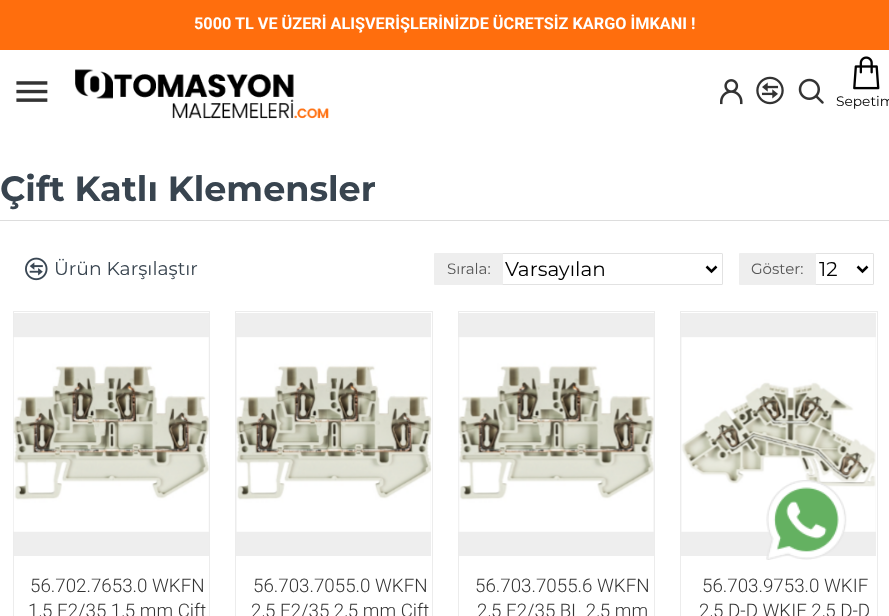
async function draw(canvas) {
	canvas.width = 889;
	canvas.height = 616;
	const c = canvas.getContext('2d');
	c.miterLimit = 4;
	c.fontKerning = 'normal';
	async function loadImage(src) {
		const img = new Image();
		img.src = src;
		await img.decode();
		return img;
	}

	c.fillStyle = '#fff';
	c.fillRect(0, 0, 889, 616);
	c.fillStyle = '#ff6e0d';
	c.fillRect(0, 0, 889, 50);
	c.font = 'bold 16.25px Roboto';
	c.fillStyle = '#fff';
	c.fillText('5000 TL VE ÜZERİ ALIŞVERİŞLERİNİZDE ÜCRETSİZ KARGO İMKANI !', 194, 29);
	c.drawImage(await loadImage('img1.png'), 75, 69, 254, 50);
	c.drawImage(await loadImage('img2.png'), 16, 81, 32, 21);
	c.drawImage(await loadImage('img3.png'), 720, 79, 23, 26);
	c.drawImage(await loadImage('img4.png'), 756, 76, 28, 29);
	c.drawImage(await loadImage('img5.png'), 798, 78, 26, 26);
	c.drawImage(await loadImage('img6.png'), 853, 56, 27, 34);
	c.font = '13.75px Montserrat';
	c.fillStyle = '#000';
	c.fillText('Sepetim', 836, 106);
	c.fillStyle = '#ddd';
	c.fillRect(0, 220, 889, 1);
	c.font = 'bold 35px Montserrat';
	c.fillStyle = '#38444f';
	c.fillText('Çift Katlı Klemensler', 0, 201);
	c.drawImage(await loadImage('img7.png'), 25, 257, 23, 24);
	c.font = '18.75px Montserrat';
	c.fillText('Ürün Karşılaştır', 54, 275);
	c.beginPath();
	c.roundRect(499.5, 253.5, 223, 31, 0.5);
	c.strokeStyle = '#e2e2e2';
	c.stroke();
	c.fillStyle = '#eee';
	c.beginPath();
	c.roundRect(434, 253, 69, 32, 1);
	c.fill();
	c.font = '15px Montserrat';
	c.fillStyle = '#555';
	c.fillText('Sırala:', 447, 274);
	c.beginPath();
	c.moveTo(706.5, 266.5);
	c.lineTo(711.5, 271.5);
	c.lineTo(716.5, 266.5);
	c.strokeStyle = '#000';
	c.lineWidth = 2.5;
	c.stroke();
	c.font = '20px Montserrat';
	c.fillStyle = '#000';
	c.fillText('Varsayılan', 505, 276);
	c.beginPath();
	c.roundRect(813.5, 253.5, 60, 31, 0.5);
	c.strokeStyle = '#e2e2e2';
	c.lineWidth = 1;
	c.stroke();
	c.fillStyle = '#eee';
	c.beginPath();
	c.roundRect(739, 253, 77, 32, 1);
	c.fill();
	c.font = '15px Montserrat';
	c.fillStyle = '#555';
	c.fillText('Göster:', 751, 274);
	c.beginPath();
	c.moveTo(857.5, 266.5);
	c.lineTo(862.5, 271.5);
	c.lineTo(867.5, 266.5);
	c.strokeStyle = '#000';
	c.lineWidth = 2.5;
	c.stroke();
	c.font = '20px Montserrat';
	c.fillStyle = '#000';
	c.fillText('12', 819, 276);
	c.strokeStyle = '#ececec';
	c.lineWidth = 1;
	c.strokeRect(13.5, 311.5, 196, 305);
	c.fillStyle = '#eee';
	c.fillRect(14, 313, 195, 243);
	c.drawImage(await loadImage('img8.png'), 13, 337, 196, 195);
	c.font = '300 18.75px Roboto';
	c.fillStyle = '#333';
	c.fillText('56.702.7653.0 WKFN', 30, 592);
	c.fillText('1,5 E2/35 1,5 mm Çift', 28, 617);
	c.strokeRect(235.5, 311.5, 197, 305);
	c.fillStyle = '#eee';
	c.fillRect(236, 313, 195, 243);
	c.drawImage(await loadImage('img9.png'), 236, 337, 196, 195);
	c.fillStyle = '#333';
	c.fillText('56.703.7055.0 WKFN', 253, 592);
	c.fillText('2,5 E2/35 2,5 mm Çift', 251, 617);
	c.strokeRect(458.5, 311.5, 196, 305);
	c.fillStyle = '#eee';
	c.fillRect(459, 313, 195, 243);
	c.drawImage(await loadImage('img10.png'), 458, 337, 196, 195);
	c.fillStyle = '#333';
	c.fillText('56.703.7055.6 WKFN', 475, 592);
	c.fillText('2,5 E2/35 BL 2,5 mm', 477, 617);
	c.strokeRect(680.5, 311.5, 197, 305);
	c.fillStyle = '#eee';
	c.fillRect(681, 313, 195, 243);
	c.drawImage(await loadImage('img11.png'), 681, 337, 195, 195);
	c.fillStyle = '#333';
	c.fillText('56.703.9753.0 WKIF', 702, 592);
	c.fillText('2,5 D-D WKIF 2,5 D-D', 699, 617);
	c.drawImage(await loadImage('img12.png'), 766, 480, 81, 80);
}

draw(document.querySelector('canvas'));
